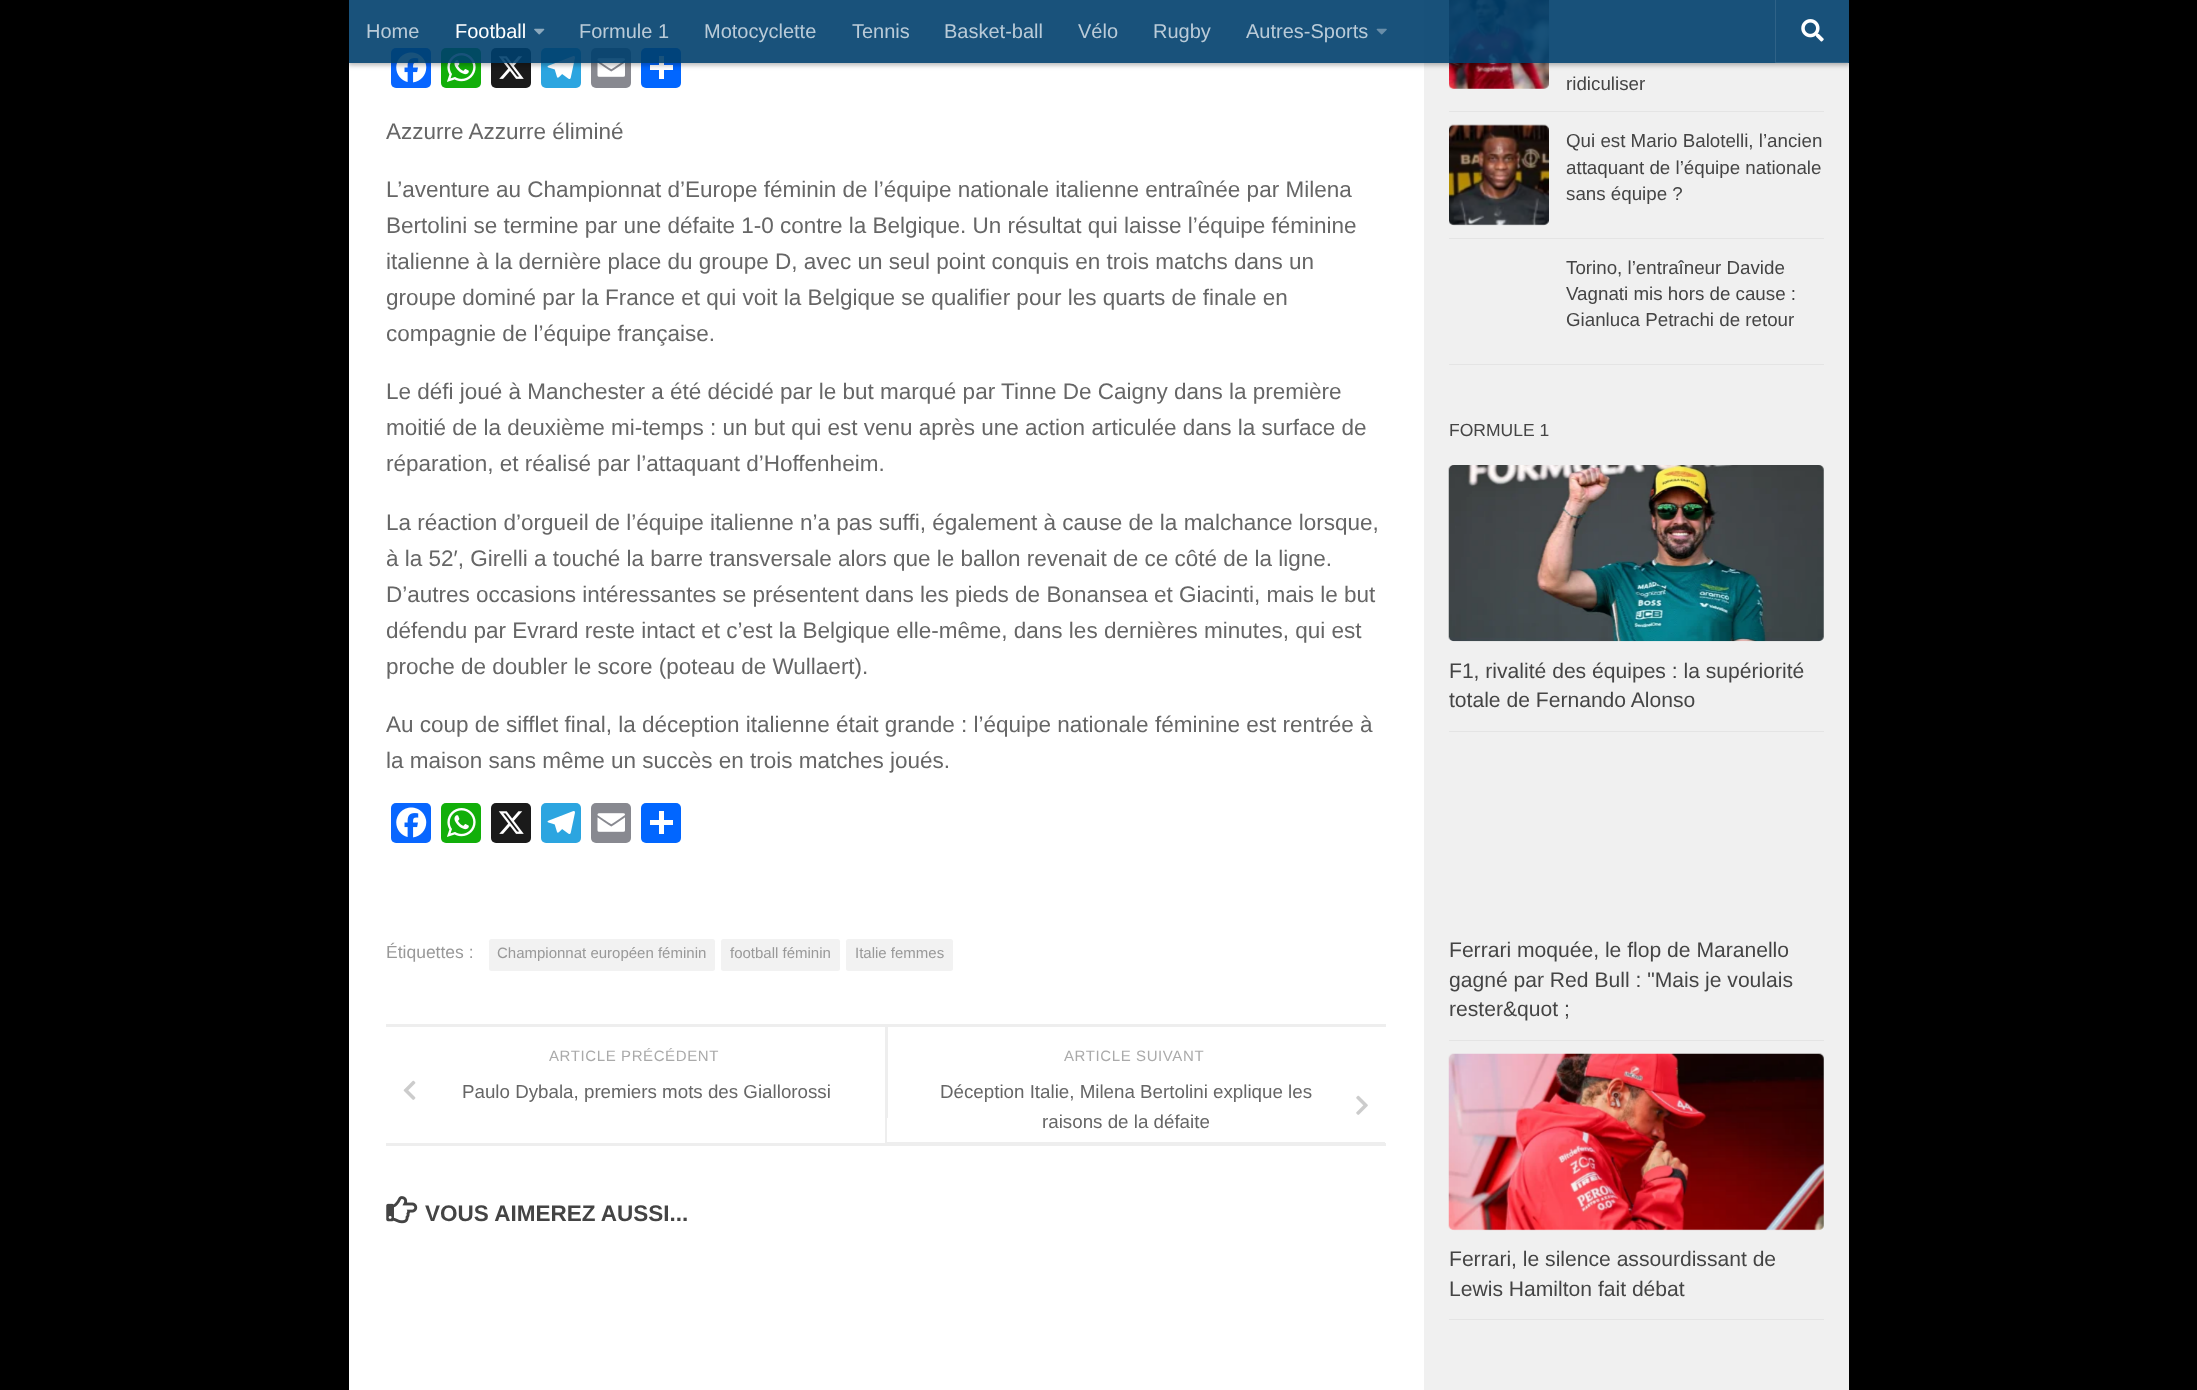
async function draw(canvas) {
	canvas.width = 2197;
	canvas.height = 1390;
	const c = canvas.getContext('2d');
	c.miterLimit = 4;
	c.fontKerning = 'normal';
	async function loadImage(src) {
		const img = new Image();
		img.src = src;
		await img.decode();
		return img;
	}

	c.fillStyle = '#000';
	c.fillRect(0, 0, 2197, 1390);
	c.fillStyle = '#fff';
	c.fillRect(349, 0, 1075, 1390);
	c.fillStyle = '#f0f0f0';
	c.fillRect(1424, 0, 425, 1390);
	c.fillStyle = '#0866ff';
	c.beginPath();
	c.roundRect(391, 48, 40, 40, 5);
	c.fill();
	c.drawImage(await loadImage('img4.png'), 396, 52, 31, 31);
	c.fillStyle = '#12af0a';
	c.beginPath();
	c.roundRect(441, 48, 40, 40, 5);
	c.fill();
	c.drawImage(await loadImage('img5.png'), 447, 53, 29, 29);
	c.fillStyle = '#1a1a1a';
	c.beginPath();
	c.roundRect(491, 48, 40, 40, 5);
	c.fill();
	c.drawImage(await loadImage('img6.png'), 498, 56, 26, 23);
	c.fillStyle = '#2ca5e0';
	c.beginPath();
	c.roundRect(541, 48, 40, 40, 5);
	c.fill();
	c.drawImage(await loadImage('img7.png'), 547, 56, 28, 23);
	c.fillStyle = '#888990';
	c.beginPath();
	c.roundRect(591, 48, 40, 40, 5);
	c.fill();
	c.drawImage(await loadImage('img8.png'), 597, 58, 28, 19);
	c.fillStyle = '#0166ff';
	c.beginPath();
	c.roundRect(641, 48, 40, 40, 5);
	c.fill();
	c.fillStyle = '#fff';
	c.fillRect(659, 56, 5, 23);
	c.fillRect(650, 65, 23, 5);
	c.drawImage(await loadImage('img12.png'), 1449, 0, 100, 89);
	c.save();
	c.beginPath();
	c.moveTo(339, 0);
	c.lineTo(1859, 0);
	c.lineTo(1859, 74);
	c.lineTo(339, 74);
	c.closePath();
	c.moveTo(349, 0);
	c.lineTo(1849, 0);
	c.lineTo(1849, 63);
	c.lineTo(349, 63);
	c.closePath();
	c.clip('evenodd');
	c.fillStyle = '#0000004d';
	c.filter = 'blur(2.5px)';
	c.beginPath();
	c.rect(348, 0, 1502, 65);
	c.fill();
	c.filter = 'none';
	c.restore();
	c.fillStyle = '#003f6de6';
	c.fillRect(349, 0, 1500, 63);
	c.font = '20px Liberation Sans';
	c.fillStyle = '#bacbd8';
	c.fillText('Home', 366, 38);
	c.fillStyle = '#fff';
	c.fillText('Football', 455, 38);
	c.drawImage(await loadImage('img1.png'), 534, 28, 11, 7);
	c.fillStyle = '#bacbd8';
	for (const [text, x, y] of [
		['Formule 1', 579, 38],
		['Motocyclette', 704, 38],
		['Tennis', 852, 38],
		['Basket-ball', 944, 38],
		['Vélo', 1078, 38],
		['Rugby', 1153, 38],
		['Autres-Sports', 1246, 38],
	]) {
		c.fillText(text, x, y);
	}
	c.drawImage(await loadImage('img2.png'), 1376, 28, 11, 7);
	c.fillStyle = '#ffffff1a';
	c.beginPath();
	c.moveTo(1775, 0);
	c.lineTo(1775, 63);
	c.lineTo(1848, 63);
	c.lineTo(1848, 62);
	c.lineTo(1776, 62);
	c.lineTo(1776, 0);
	c.closePath();
	c.fill();
	c.drawImage(await loadImage('img3.png'), 1801, 19, 23, 23);
	c.font = '22.5px Liberation Sans';
	c.fillStyle = '#666';
	for (const [text, x, y] of [
		['Azzurre Azzurre éliminé', 386, 139],
		['L’aventure au Championnat d’Europe féminin de l’équipe nationale italienne entraînée par Milena', 386, 197],
		['Bertolini se termine par une défaite 1-0 contre la Belgique. Un résultat qui laisse l’équipe féminine', 386, 233],
		['italienne à la dernière place du groupe D, avec un seul point conquis en trois matchs dans un', 386, 269],
		['groupe dominé par la France et qui voit la Belgique se qualifier pour les quarts de finale en', 386, 305],
		['compagnie de l’équipe française.', 386, 341],
		['Le défi joué à Manchester a été décidé par le but marqué par Tinne De Caigny dans la première', 386, 399],
		['moitié de la deuxième mi-temps : un but qui est venu après une action articulée dans la surface de', 386, 435],
		['réparation, et réalisé par l’attaquant d’Hoffenheim.', 386, 471],
		['La réaction d’orgueil de l’équipe italienne n’a pas suffi, également à cause de la malchance lorsque,', 386, 530],
		['à la 52′, Girelli a touché la barre transversale alors que le ballon revenait de ce côté de la ligne.', 386, 566],
		['D’autres occasions intéressantes se présentent dans les pieds de Bonansea et Giacinti, mais le but', 386, 602],
		['défendu par Evrard reste intact et c’est la Belgique elle-même, dans les dernières minutes, qui est', 386, 638],
		['proche de doubler le score (poteau de Wullaert).', 386, 674],
		['Au coup de sifflet final, la déception italienne était grande : l’équipe nationale féminine est rentrée à', 386, 732],
		['la maison sans même un succès en trois matches joués.', 386, 768],
	]) {
		c.fillText(text, x, y);
	}
	c.fillStyle = '#0866ff';
	c.beginPath();
	c.roundRect(391, 803, 40, 40, 5);
	c.fill();
	c.drawImage(await loadImage('img4.png'), 396, 807, 31, 31);
	c.fillStyle = '#12af0a';
	c.beginPath();
	c.roundRect(441, 803, 40, 40, 5);
	c.fill();
	c.drawImage(await loadImage('img5.png'), 447, 808, 29, 29);
	c.fillStyle = '#1a1a1a';
	c.beginPath();
	c.roundRect(491, 803, 40, 40, 5);
	c.fill();
	c.drawImage(await loadImage('img6.png'), 498, 811, 26, 23);
	c.fillStyle = '#2ca5e0';
	c.beginPath();
	c.roundRect(541, 803, 40, 40, 5);
	c.fill();
	c.drawImage(await loadImage('img7.png'), 547, 811, 28, 23);
	c.fillStyle = '#888990';
	c.beginPath();
	c.roundRect(591, 803, 40, 40, 5);
	c.fill();
	c.drawImage(await loadImage('img8.png'), 597, 813, 28, 19);
	c.fillStyle = '#0166ff';
	c.beginPath();
	c.roundRect(641, 803, 40, 40, 5);
	c.fill();
	c.fillStyle = '#fff';
	c.fillRect(659, 811, 5, 23);
	c.fillRect(650, 820, 23, 5);
	c.font = '17.5px Liberation Sans';
	c.fillStyle = '#999';
	c.fillText('Étiquettes :', 386, 958);
	c.fillStyle = '#f2f2f2';
	c.beginPath();
	c.roundRect(489, 939, 226, 32, 2.5);
	c.fill();
	c.font = '15px Liberation Sans';
	c.fillStyle = '#999';
	c.fillText('Championnat européen féminin', 497, 958);
	c.fillStyle = '#f2f2f2';
	c.beginPath();
	c.roundRect(721, 939, 119, 32, 2.5);
	c.fill();
	c.fillStyle = '#999';
	c.fillText('football féminin', 730, 958);
	c.fillStyle = '#f2f2f2';
	c.beginPath();
	c.roundRect(846, 939, 107, 32, 2.5);
	c.fill();
	c.fillStyle = '#999';
	c.fillText('Italie femmes', 855, 958);
	c.fillStyle = '#eee';
	c.fillRect(386, 1024, 1000, 3);
	c.fillRect(386, 1143, 1000, 3);
	c.beginPath();
	c.moveTo(885, 1026);
	c.lineTo(885, 1143);
	c.lineTo(1385, 1143);
	c.lineTo(1385, 1142);
	c.lineTo(886, 1142);
	c.lineTo(886, 1026);
	c.lineTo(1385, 1026);
	c.closePath();
	c.fill();
	c.beginPath();
	c.moveTo(388, 1026);
	c.lineTo(886, 1026);
	c.lineTo(886, 1118);
	c.lineTo(388, 1118);
	c.lineTo(888, 1118);
	c.lineTo(888, 1026);
	c.closePath();
	c.fill();
	c.letterSpacing = '0.6px';
	c.fillStyle = '#aaa';
	c.fillText('ARTICLE PRÉCÉDENT', 549, 1061);
	c.drawImage(await loadImage('img9.png'), 403, 1080, 13, 20);
	c.letterSpacing = '0px';
	c.font = '18.75px Liberation Sans';
	c.fillStyle = '#666';
	c.fillText('Paulo Dybala, premiers mots des Giallorossi', 462, 1098);
	c.fillStyle = '#eee';
	c.fillRect(886, 1118, 1, 25);
	c.letterSpacing = '0.6px';
	c.font = '15px Liberation Sans';
	c.fillStyle = '#aaa';
	c.fillText('ARTICLE SUIVANT', 1064, 1061);
	c.letterSpacing = '0px';
	c.font = '18.75px Liberation Sans';
	c.fillStyle = '#666';
	c.fillText('Déception Italie, Milena Bertolini explique les', 940, 1098);
	c.drawImage(await loadImage('img10.png'), 1356, 1095, 12, 20);
	c.fillText('raisons de la défaite', 1042, 1128);
	c.drawImage(await loadImage('img11.png'), 386, 1196, 32, 28);
	c.font = 'bold 22.5px Liberation Sans';
	c.fillStyle = '#444';
	c.fillText('VOUS AIMEREZ AUSSI...', 425, 1221);
	c.fillStyle = '#e4e4e4';
	c.fillRect(1449, 111, 375, 1);
	c.font = '18.75px Liberation Sans';
	c.fillStyle = '#444';
	c.fillText('ridiculiser', 1566, 90);
	c.fillStyle = '#e4e4e4';
	c.fillRect(1449, 238, 375, 1);
	c.drawImage(await loadImage('img13.png'), 1449, 124, 100, 102);
	c.fillStyle = '#444';
	for (const [text, x, y] of [
		['Qui est Mario Balotelli, l’ancien', 1566, 147],
		['attaquant de l’équipe nationale', 1566, 174],
		['sans équipe ?', 1566, 200],
	]) {
		c.fillText(text, x, y);
	}
	c.fillStyle = '#e4e4e4';
	c.fillRect(1449, 364, 375, 1);
	c.fillStyle = '#444';
	for (const [text, x, y] of [
		['Torino, l’entraîneur Davide', 1566, 274],
		['Vagnati mis hors de cause :', 1566, 300],
		['Gianluca Petrachi de retour', 1566, 326],
	]) {
		c.fillText(text, x, y);
	}
	c.font = '17.5px Liberation Sans';
	c.fillText('FORMULE 1', 1449, 436);
	c.fillStyle = '#e4e4e4';
	c.fillRect(1449, 731, 375, 1);
	c.drawImage(await loadImage('img14.png'), 1448, 465, 376, 177);
	c.font = '21.1px Liberation Sans';
	c.fillStyle = '#444';
	c.fillText('F1, rivalité des équipes : la supériorité', 1449, 678);
	c.fillText('totale de Fernando Alonso', 1449, 707);
	c.fillStyle = '#e4e4e4';
	c.fillRect(1449, 1040, 375, 1);
	c.fillStyle = '#444';
	for (const [text, x, y] of [
		['Ferrari moquée, le flop de Maranello', 1449, 957],
		['gagné par Red Bull : "Mais je voulais', 1449, 987],
		['rester&quot ;', 1449, 1016],
	]) {
		c.fillText(text, x, y);
	}
	c.fillStyle = '#e4e4e4';
	c.fillRect(1449, 1319, 375, 1);
	c.drawImage(await loadImage('img15.png'), 1448, 1053, 376, 178);
	c.fillStyle = '#444';
	c.fillText('Ferrari, le silence assourdissant de', 1449, 1266);
	c.fillText('Lewis Hamilton fait débat', 1449, 1296);
}

draw(document.querySelector('canvas'));
